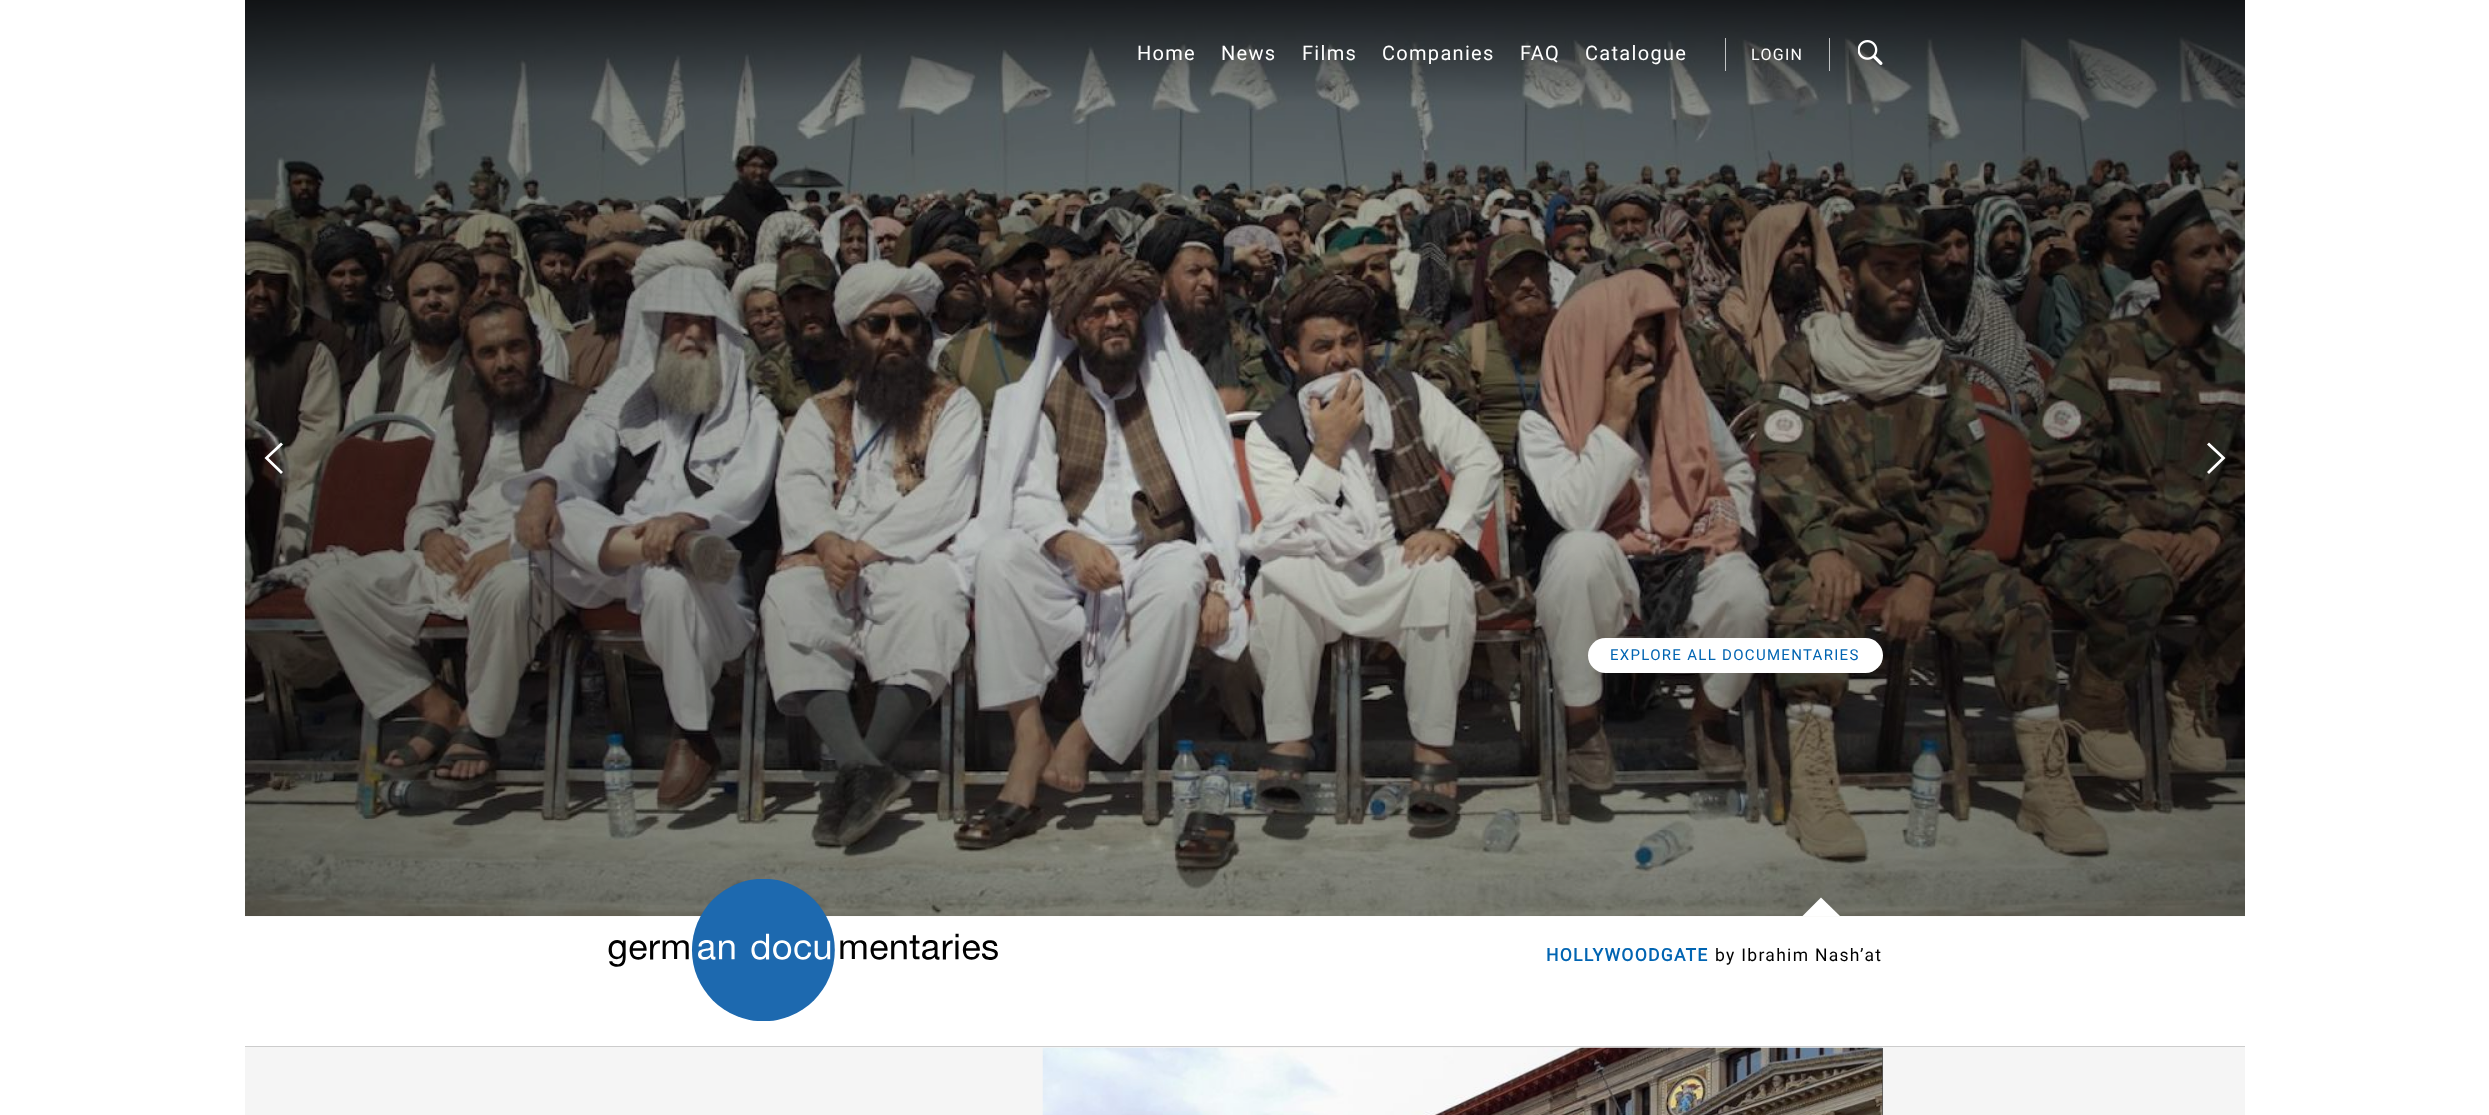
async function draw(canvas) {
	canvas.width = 2489;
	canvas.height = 1115;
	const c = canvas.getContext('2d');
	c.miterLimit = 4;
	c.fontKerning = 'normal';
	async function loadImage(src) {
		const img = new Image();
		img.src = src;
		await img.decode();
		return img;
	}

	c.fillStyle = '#fff';
	c.fillRect(0, 0, 2489, 1115);
	c.drawImage(await loadImage('img2.png'), 245, 0, 2000, 917);
	c.letterSpacing = '1.3px';
	c.font = '20px Roboto';
	for (const [text, x, y] of [
		['Home', 1137, 60],
		['News', 1221, 60],
		['Films', 1302, 60],
		['Companies', 1382, 60],
		['FAQ', 1520, 60],
		['Catalogue', 1585, 60],
	]) {
		c.fillText(text, x, y);
	}
	c.fillStyle = '#ffffffb3';
	c.fillRect(1829, 38, 1, 33);
	c.fillRect(1725, 38, 1, 33);
	c.font = '16px Roboto';
	c.fillStyle = '#fff';
	c.fillText('LOGIN', 1751, 60);
	c.drawImage(await loadImage('img1.png'), 1858, 40, 25, 25);
	c.beginPath();
	c.moveTo(268.5, 458);
	c.lineTo(283, 472);
	c.lineTo(281, 474);
	c.lineTo(264.5, 458);
	c.lineTo(281, 442.5);
	c.lineTo(283, 444.5);
	c.closePath();
	c.fill();
	c.beginPath();
	c.moveTo(2221.5, 458);
	c.lineTo(2207, 444.5);
	c.lineTo(2209, 442.5);
	c.lineTo(2225.5, 458);
	c.lineTo(2209, 474);
	c.lineTo(2207, 472);
	c.closePath();
	c.fill();
	c.beginPath();
	c.roundRect(1588, 638, 295, 35, 17.5);
	c.fill();
	c.font = '15px Roboto';
	c.fillStyle = '#0064b2';
	c.fillText('EXPLORE ALL DOCUMENTARIES', 1610, 660);
	c.drawImage(await loadImage('img3.png'), 608, 879, 390, 142);
	c.fillStyle = '#fff';
	c.beginPath();
	c.moveTo(1840, 916);
	c.lineTo(1802.5, 916);
	c.lineTo(1821, 897.5);
	c.closePath();
	c.fill();
	c.font = 'bold 17.5px Roboto';
	c.fillStyle = '#0064b2';
	c.fillText('HOLLYWOODGATE', 1546, 961);
	c.font = '17.5px Roboto';
	c.fillStyle = '#000';
	c.fillText('by Ibrahim Nash’at', 1715, 961);
	for (const [x, y, w, h, color] of [
		[245, 1047, 2000, 68, '#f5f5f5'],
		[245, 1046, 2000, 1, '#ccc'],
		[1882, 1048, 1, 67, '#535353'],
	]) {
		c.fillStyle = color;
		c.fillRect(x, y, w, h);
	}
	c.drawImage(await loadImage('img4.png'), 1042, 1047, 841, 68);
}

draw(document.querySelector('canvas'));
